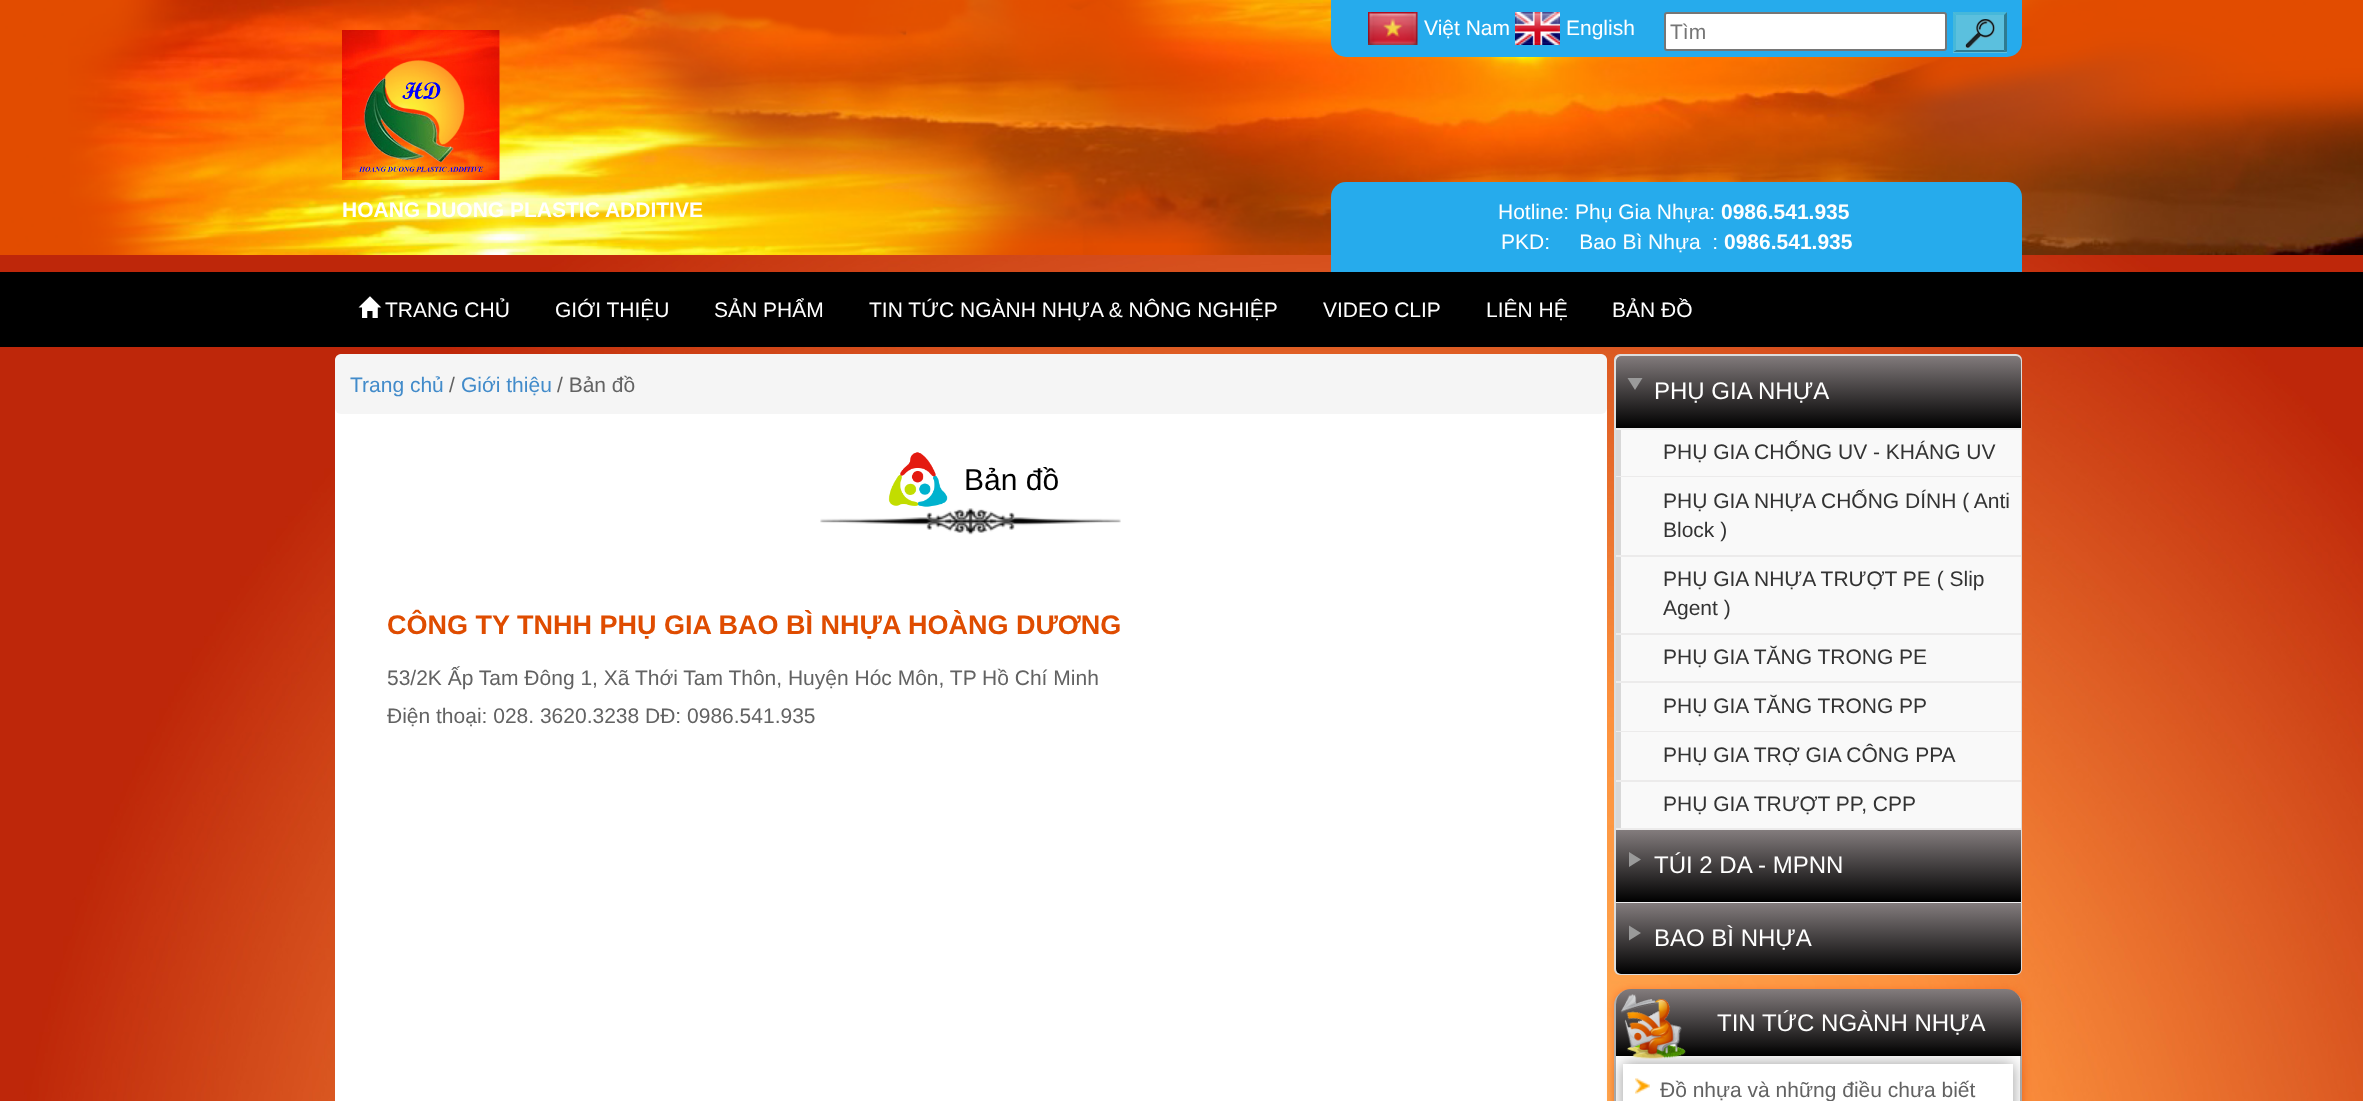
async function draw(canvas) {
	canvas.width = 2363;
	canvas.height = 1101;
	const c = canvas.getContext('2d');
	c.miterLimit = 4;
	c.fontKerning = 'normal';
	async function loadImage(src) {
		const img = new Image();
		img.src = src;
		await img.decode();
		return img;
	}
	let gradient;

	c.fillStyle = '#fff';
	c.fillRect(0, 0, 2363, 1101);
	c.drawImage(await loadImage('img1.png'), 0, 255, 2363, 846);
	c.drawImage(await loadImage('img2.png'), 0, 0, 2363, 255);
	c.drawImage(await loadImage('img3.png'), 342, 30, 158, 150);
	c.font = 'bold 21px Liberation Sans';
	c.fillText('HOANG DUONG PLASTIC ADDITIVE', 342, 217);
	c.fillStyle = '#26abec';
	c.beginPath();
	c.roundRect(1331, 0, 691, 57, [0, 0, 15, 15]);
	c.fill();
	c.drawImage(await loadImage('img4.png'), 1368, 12, 50, 33);
	c.font = '21px Liberation Sans';
	c.fillStyle = '#fff';
	c.fillText('Việt Nam', 1424, 35);
	c.drawImage(await loadImage('img5.png'), 1515, 12, 45, 33);
	c.fillText('English', 1566, 35);
	c.beginPath();
	c.roundRect(1665, 13, 281, 37, 2);
	c.fill();
	c.strokeStyle = '#767676';
	c.lineWidth = 2;
	c.stroke();
	c.fillStyle = '#757575';
	c.fillText('Tìm', 1670, 39);
	c.fillStyle = '#5bc0de';
	c.fillRect(1953, 12, 54, 41);
	c.fillStyle = '#46b8da';
	c.beginPath();
	c.moveTo(1953, 12);
	c.lineTo(2007, 12);
	c.lineTo(2004, 15);
	c.lineTo(1956, 15);
	c.closePath();
	c.fill();
	c.fillStyle = '#2f7b91';
	c.beginPath();
	c.moveTo(2007, 12);
	c.lineTo(2007, 52);
	c.lineTo(2004, 50);
	c.lineTo(2004, 15);
	c.closePath();
	c.fill();
	c.beginPath();
	c.moveTo(2007, 52);
	c.lineTo(1953, 52);
	c.lineTo(1956, 50);
	c.lineTo(2004, 50);
	c.closePath();
	c.fill();
	c.fillStyle = '#46b8da';
	c.beginPath();
	c.moveTo(1953, 52);
	c.lineTo(1953, 12);
	c.lineTo(1956, 15);
	c.lineTo(1956, 50);
	c.closePath();
	c.fill();
	c.drawImage(await loadImage('img6.png'), 1965, 19, 30, 29);
	c.fillStyle = '#26abec';
	c.beginPath();
	c.roundRect(1331, 182, 691, 90, [15, 15, 0, 0]);
	c.fill();
	c.fillStyle = '#fff';
	c.fillText('Hotline: Phụ Gia Nhựa:', 1498, 219);
	c.font = 'bold 21px Liberation Sans';
	c.fillText('0986.541.935', 1721, 219);
	c.font = '21px Liberation Sans';
	c.fillText('PKD:     Bao Bì Nhựa  :', 1501, 249);
	c.font = 'bold 21px Liberation Sans';
	c.fillText('0986.541.935', 1724, 249);
	c.fillStyle = '#000';
	c.fillRect(0, 272, 2363, 75);
	c.drawImage(await loadImage('img7.png'), 358, 296, 24, 22);
	c.font = '21px Liberation Sans';
	c.fillStyle = '#fff';
	for (const [text, x, y] of [
		['TRANG CHỦ', 385, 317],
		['GIỚI THIỆU', 555, 317],
		['SẢN PHẨM', 714, 317],
		['TIN TỨC NGÀNH NHỰA & NÔNG NGHIỆP', 869, 317],
		['VIDEO CLIP', 1323, 317],
		['LIÊN HỆ', 1486, 317],
		['BẢN ĐỒ', 1612, 317],
	]) {
		c.fillText(text, x, y);
	}
	c.beginPath();
	c.roundRect(335, 354, 1272, 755, 8);
	c.fill();
	c.fillStyle = '#f5f5f5';
	c.beginPath();
	c.roundRect(335, 354, 1272, 60, 6);
	c.fill();
	c.fillStyle = '#428bca';
	c.fillText('Trang chủ', 350, 392);
	c.fillStyle = '#626262';
	c.fillText('/', 449, 392);
	c.fillStyle = '#428bca';
	c.fillText('Giới thiệu', 461, 392);
	c.fillStyle = '#626262';
	c.fillText('/ Bản đồ', 557, 392);
	c.drawImage(await loadImage('img8.png'), 888, 452, 60, 55);
	c.font = '30px Liberation Sans';
	c.fillStyle = '#000';
	c.fillText('Bản đồ', 964, 490);
	c.drawImage(await loadImage('img9.png'), 820, 508, 301, 27);
	c.font = 'bold 27px Liberation Sans';
	c.fillStyle = '#df4c00';
	c.fillText('CÔNG TY TNHH PHỤ GIA BAO BÌ NHỰA HOÀNG DƯƠNG', 387, 634);
	c.font = '21px Liberation Sans';
	c.fillStyle = '#626262';
	c.fillText('53/2K Ấp Tam Đông 1, Xã Thới Tam Thôn, Huyện Hóc Môn, TP Hồ Chí Minh', 387, 685);
	c.fillText('Điện thoại: 028. 3620.3238 DĐ: 0986.541.935', 387, 723);
	c.fillStyle = '#fff';
	c.beginPath();
	c.roundRect(1615, 355, 406, 619, 5);
	c.fill();
	c.strokeStyle = '#ddd';
	c.stroke();
	c.fillStyle = '#d8d8d8';
	c.fillRect(1616, 429, 5, 47);
	c.fillStyle = '#eee';
	c.fillRect(1616, 428, 405, 2);
	gradient = c.createLinearGradient(1818, 355, 1818, 428);
	gradient.addColorStop(0, '#837c7d');
	gradient.addColorStop(1, '#000');
	c.fillStyle = gradient;
	c.beginPath();
	c.roundRect(1616, 356, 405, 72, [5, 5, 0, 0]);
	c.fill();
	c.fillStyle = '#9a9a9a';
	c.beginPath();
	c.moveTo(1627.5, 378);
	c.lineTo(1642.5, 378);
	c.lineTo(1635, 390);
	c.closePath();
	c.fill();
	c.font = '24px Liberation Sans';
	c.fillStyle = '#fff';
	c.fillText('PHỤ GIA NHỰA', 1654, 399);
	c.fillStyle = '#f9f9f9';
	c.fillRect(1621, 430, 400, 46);
	c.fillStyle = '#ecebeb';
	c.fillRect(1616, 476, 405, 1);
	c.font = '21px Liberation Sans';
	c.fillStyle = '#333';
	c.fillText('PHỤ GIA CHỐNG UV - KHÁNG UV', 1663, 459);
	for (const [x, y, w, h, color] of [
		[1621, 477, 400, 78, '#f9f9f9'],
		[1616, 555, 405, 2, '#ecebeb'],
		[1616, 477, 5, 78, '#d8d8d8'],
	]) {
		c.fillStyle = color;
		c.fillRect(x, y, w, h);
	}
	c.fillStyle = '#333';
	c.fillText('PHỤ GIA NHỰA CHỐNG DÍNH ( Anti', 1663, 508);
	c.fillText('Block )', 1663, 537);
	for (const [x, y, w, h, color] of [
		[1621, 557, 400, 76, '#f9f9f9'],
		[1616, 633, 405, 2, '#ecebeb'],
		[1616, 557, 5, 76, '#d8d8d8'],
	]) {
		c.fillStyle = color;
		c.fillRect(x, y, w, h);
	}
	c.fillStyle = '#333';
	c.fillText('PHỤ GIA NHỰA TRƯỢT PE ( Slip', 1663, 586);
	c.fillText('Agent )', 1663, 615);
	for (const [x, y, w, h, color] of [
		[1621, 635, 400, 46, '#f9f9f9'],
		[1616, 681, 405, 2, '#ecebeb'],
		[1616, 635, 5, 46, '#d8d8d8'],
	]) {
		c.fillStyle = color;
		c.fillRect(x, y, w, h);
	}
	c.fillStyle = '#333';
	c.fillText('PHỤ GIA TĂNG TRONG PE', 1663, 664);
	for (const [x, y, w, h, color] of [
		[1621, 683, 400, 48, '#f9f9f9'],
		[1616, 731, 405, 1, '#ecebeb'],
		[1616, 683, 5, 48, '#d8d8d8'],
	]) {
		c.fillStyle = color;
		c.fillRect(x, y, w, h);
	}
	c.fillStyle = '#333';
	c.fillText('PHỤ GIA TĂNG TRONG PP', 1663, 713);
	for (const [x, y, w, h, color] of [
		[1621, 732, 400, 48, '#f9f9f9'],
		[1616, 780, 405, 2, '#ecebeb'],
		[1616, 732, 5, 48, '#d8d8d8'],
	]) {
		c.fillStyle = color;
		c.fillRect(x, y, w, h);
	}
	c.fillStyle = '#333';
	c.fillText('PHỤ GIA TRỢ GIA CÔNG PPA', 1663, 762);
	for (const [x, y, w, h, color] of [
		[1621, 782, 400, 46, '#f9f9f9'],
		[1616, 828, 405, 2, '#ecebeb'],
		[1616, 782, 5, 46, '#d8d8d8'],
	]) {
		c.fillStyle = color;
		c.fillRect(x, y, w, h);
	}
	c.fillStyle = '#333';
	c.fillText('PHỤ GIA TRƯỢT PP, CPP', 1663, 811);
	c.fillStyle = '#eee';
	c.fillRect(1616, 902, 405, 1);
	gradient = c.createLinearGradient(1818, 830, 1818, 902);
	gradient.addColorStop(0, '#837c7d');
	gradient.addColorStop(1, '#000');
	c.fillStyle = gradient;
	c.fillRect(1616, 830, 405, 72);
	c.fillStyle = '#9a9a9a';
	c.beginPath();
	c.moveTo(1629, 867);
	c.lineTo(1629, 852);
	c.lineTo(1641, 859.5);
	c.closePath();
	c.fill();
	c.font = '24px Liberation Sans';
	c.fillStyle = '#fff';
	c.fillText('TÚI 2 DA - MPNN', 1654, 873);
	gradient = c.createLinearGradient(1818, 903, 1818, 974);
	gradient.addColorStop(0, '#837c7d');
	gradient.addColorStop(1, '#000');
	c.fillStyle = gradient;
	c.beginPath();
	c.roundRect(1616, 903, 405, 71, [0, 0, 5, 5]);
	c.fill();
	c.fillStyle = '#9a9a9a';
	c.beginPath();
	c.moveTo(1629, 940.5);
	c.lineTo(1629, 925.5);
	c.lineTo(1641, 933);
	c.closePath();
	c.fill();
	c.fillStyle = '#fff';
	c.fillText('BAO BÌ NHỰA', 1654, 946);
	c.fillStyle = '#ff3f0066';
	c.filter = 'blur(4px)';
	c.beginPath();
	c.roundRect(1614, 990, 408, 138, 15);
	c.fill();
	c.filter = 'none';
	c.fillStyle = '#fff';
	c.beginPath();
	c.moveTo(1629, 991);
	c.lineTo(2007, 991);
	c.bezierCurveTo(2014.5, 991, 2021, 997.5, 2021, 1005);
	c.lineTo(2021, 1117);
	c.lineTo(1615, 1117);
	c.lineTo(1615, 1005);
	c.bezierCurveTo(1615, 997.5, 1621.5, 991, 1629, 991);
	c.closePath();
	c.fill();
	c.strokeStyle = '#b1b1b1';
	c.stroke();
	gradient = c.createLinearGradient(1818, 989, 1818, 1056);
	gradient.addColorStop(0, '#837c7d');
	gradient.addColorStop(1, '#000');
	c.fillStyle = gradient;
	c.beginPath();
	c.roundRect(1616, 989, 405, 67, [15, 15, 0, 0]);
	c.fill();
	c.save();
	c.beginPath();
	c.moveTo(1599, 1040);
	c.lineTo(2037, 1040);
	c.lineTo(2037, 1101);
	c.lineTo(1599, 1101);
	c.closePath();
	c.moveTo(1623, 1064);
	c.lineTo(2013, 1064);
	c.lineTo(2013, 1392);
	c.lineTo(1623, 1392);
	c.closePath();
	c.clip('evenodd');
	c.fillStyle = '#00000066';
	c.filter = 'blur(7.5px)';
	c.beginPath();
	c.rect(1623, 1064, 390, 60);
	c.fill();
	c.filter = 'none';
	c.restore();
	c.drawImage(await loadImage('img10.png'), 1620, 994, 66, 65);
	c.fillStyle = '#fff';
	c.fillText('TIN TỨC NGÀNH NHỰA', 1717, 1031);
	c.drawImage(await loadImage('img11.png'), 1635, 1078, 15, 16);
	c.font = '21px Liberation Sans';
	c.fillStyle = '#626262';
	c.fillText('Đồ nhựa và những điều chưa biết', 1660, 1097);
}

draw(document.querySelector('canvas'));
